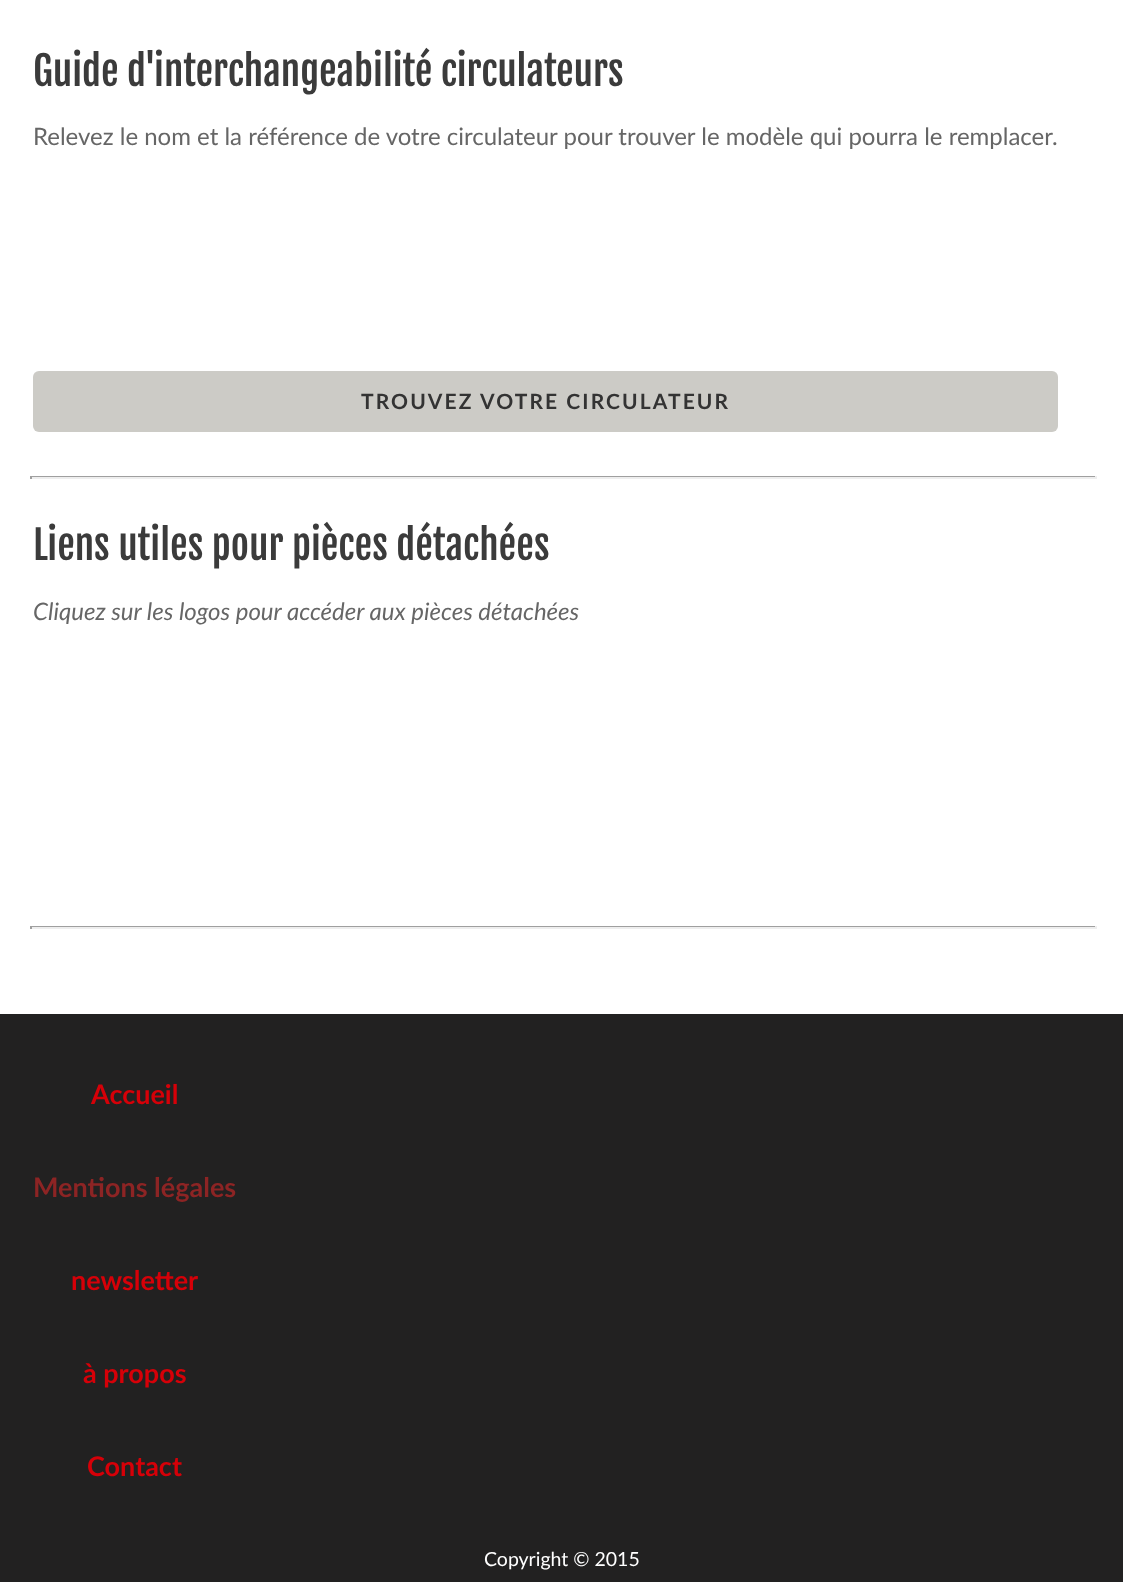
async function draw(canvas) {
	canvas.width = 1123;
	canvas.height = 1582;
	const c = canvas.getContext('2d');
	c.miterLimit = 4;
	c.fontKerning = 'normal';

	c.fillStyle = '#222121';
	c.fillRect(0, 0, 1123, 1582);
	c.fillStyle = '#fff';
	c.fillRect(0, 0, 1123, 1014);
	c.font = '39.4px Fjalla One';
	c.fillStyle = '#3b3b3b';
	c.fillText('Guide d\'interchangeabilité circulateurs', 33, 86);
	c.font = '24px Lato';
	c.fillStyle = '#666';
	c.fillText('Relevez le nom et la référence de votre circulateur pour trouver le modèle qui pourra le remplacer.', 33, 145);
	c.fillStyle = '#cccbc6';
	c.beginPath();
	c.roundRect(33, 371, 1025, 61, 6);
	c.fill();
	c.letterSpacing = '2.1px';
	c.font = 'bold 21px Lato';
	c.fillStyle = '#333';
	c.fillText('TROUVEZ VOTRE CIRCULATEUR', 361, 409);
	for (const [x, y, w, h, color] of [
		[30, 476, 1067, 1, '#9f9f9f'],
		[1095, 476, 2, 3, '#eee'],
		[30, 477, 1067, 2, '#eee'],
		[30, 476, 2, 3, '#9f9f9f'],
	]) {
		c.fillStyle = color;
		c.fillRect(x, y, w, h);
	}
	c.letterSpacing = '0px';
	c.font = '39.4px Fjalla One';
	c.fillStyle = '#3b3b3b';
	c.fillText('Liens utiles pour pièces détachées', 33, 560);
	c.font = 'italic 24px Lato';
	c.fillStyle = '#666';
	c.fillText('Cliquez sur les logos pour accéder aux pièces détachées', 33, 620);
	for (const [x, y, w, h, color] of [
		[30, 926, 1067, 1, '#9f9f9f'],
		[1095, 926, 2, 3, '#eee'],
		[30, 927, 1067, 2, '#eee'],
		[30, 926, 2, 3, '#9f9f9f'],
	]) {
		c.fillStyle = color;
		c.fillRect(x, y, w, h);
	}
	c.font = 'bold 27px Lato';
	c.fillStyle = '#d60008';
	c.fillText('Accueil', 91, 1104);
	c.fillStyle = '#8d2424';
	c.fillText('Mentions légales', 33, 1197);
	c.fillStyle = '#d60008';
	for (const [text, x, y] of [
		['newsletter', 71, 1290],
		['à propos', 83, 1383],
		['Contact', 87, 1476],
	]) {
		c.fillText(text, x, y);
	}
	c.font = '19.5px Lato';
	c.fillStyle = '#fff';
	c.fillText('Copyright © 2015', 484, 1566);
}

draw(document.querySelector('canvas'));
